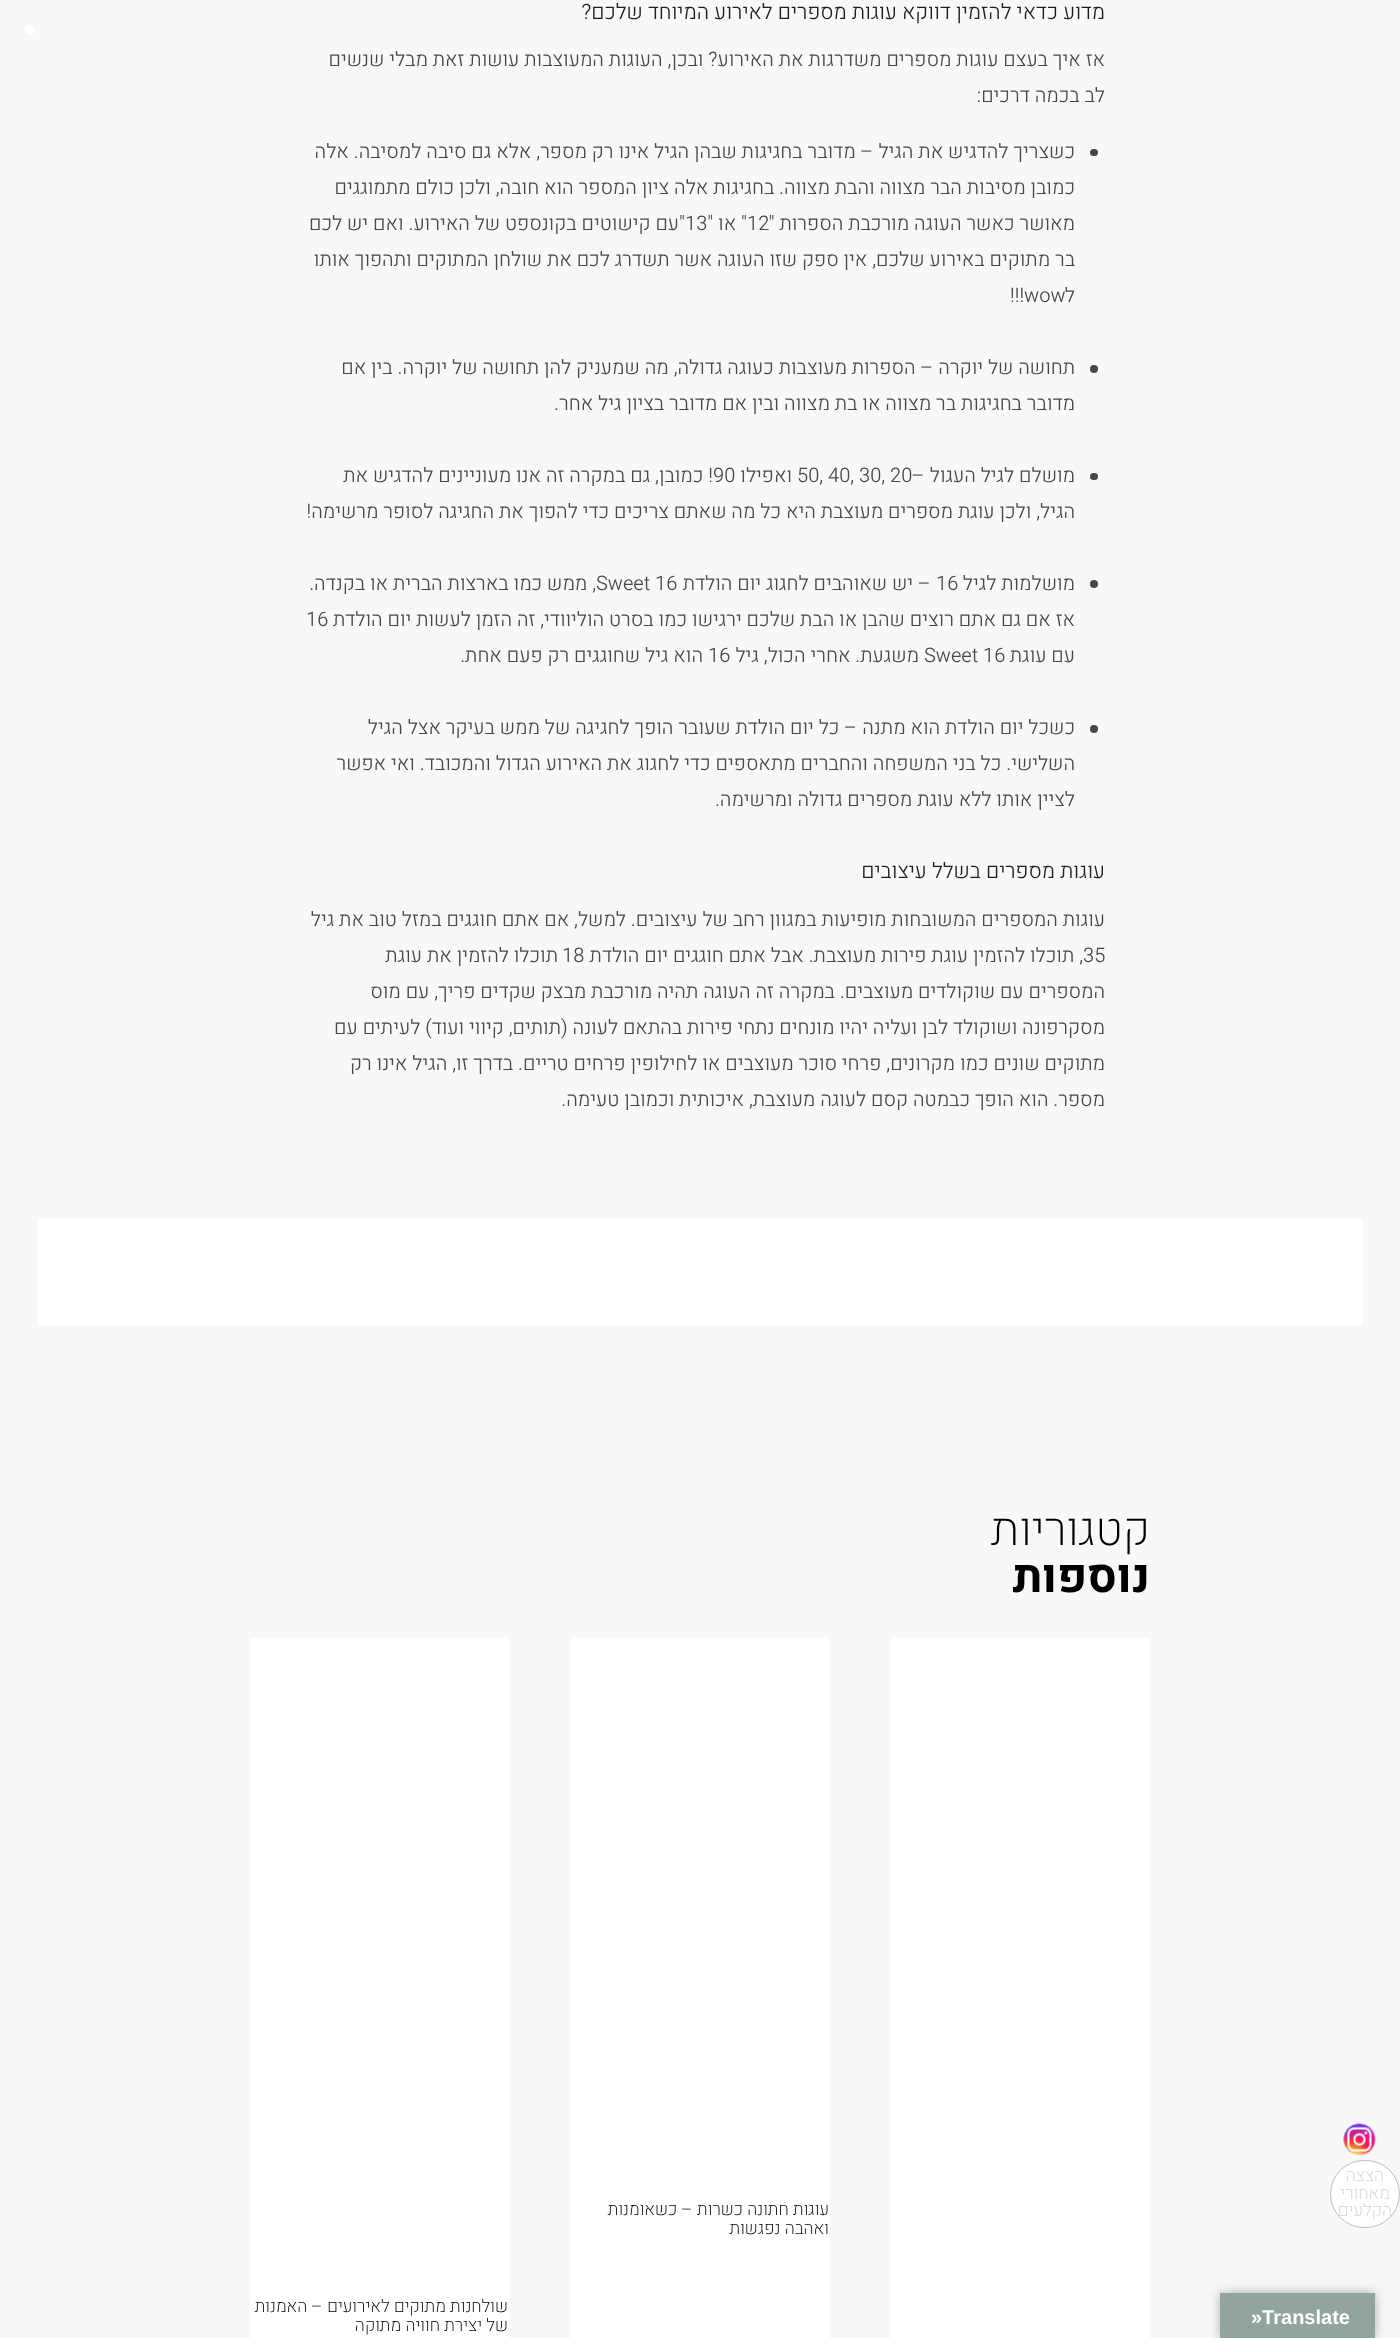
async function draw(canvas) {
	canvas.width = 1400;
	canvas.height = 2338;
	const c = canvas.getContext('2d');
	c.miterLimit = 4;
	c.fontKerning = 'normal';
	async function loadImage(src) {
		const img = new Image();
		img.src = src;
		await img.decode();
		return img;
	}

	c.fillStyle = '#f8f8f8';
	c.fillRect(0, 0, 1400, 2338);
	c.drawImage(await loadImage('img1.png'), 1343, 2123, 33, 33);
	c.fillStyle = '#fff';
	c.beginPath();
	c.roundRect(1330.5, 2160.5, 69, 67, 33.5);
	c.fill();
	c.strokeStyle = '#bebebe';
	c.stroke();
	c.direction = 'rtl';
	c.font = '200 17.5px Heebo';
	c.fillStyle = '#d2d3d5';
	for (const [text, x, y] of [
		['הצצה', 1384, 2181],
		['מאחורי', 1390, 2199],
		['הקלעים', 1392, 2216],
	]) {
		c.fillText(text, x, y);
	}
	c.font = '300 21.25px Heebo';
	c.fillStyle = '#1b1e25';
	c.fillText('מדוע כדאי להזמין דווקא עוגות מספרים לאירוע המיוחד שלכם?', 1105, 19);
	c.font = '300 20px Heebo';
	c.fillStyle = '#474747';
	c.fillText('אז איך בעצם עוגות מספרים משדרגות את האירוע? ובכן, העוגות המעוצבות עושות זאת מבלי שנשים', 1105, 66);
	c.fillText('לב בכמה דרכים:', 1105, 102);
	c.beginPath();
	c.roundRect(1090, 149, 8, 7, 3.5);
	c.fill();
	for (const [text, x, y] of [
		['כשצריך להדגיש את הגיל – מדובר בחגיגות שבהן הגיל אינו רק מספר, אלא גם סיבה למסיבה. אלה', 1075, 158],
		['כמובן מסיבות הבר מצווה והבת מצווה. בחגיגות אלה ציון המספר הוא חובה, ולכן כולם מתמוגגים', 1075, 194],
		['מאושר כאשר העוגה מורכבת הספרות "', 1075, 230],
	]) {
		c.fillText(text, x, y);
	}
	c.direction = 'ltr';
	c.fillText('12', 747, 230);
	c.direction = 'rtl';
	c.fillText('" או "', 747, 230);
	c.direction = 'ltr';
	c.fillText('13', 685, 230);
	c.direction = 'rtl';
	for (const [text, x, y] of [
		['"עם קישוטים בקונספט של האירוע. ואם יש לכם', 685, 230],
		['בר מתוקים באירוע שלכם, אין ספק שזו העוגה אשר תשדרג לכם את שולחן המתוקים ותהפוך אותו', 1075, 266],
		['ל', 1075, 302],
	]) {
		c.fillText(text, x, y);
	}
	c.direction = 'ltr';
	c.fillText('!!!wow', 1010, 302);
	c.beginPath();
	c.arc(1094, 369, 4, 0, 2 * Math.PI);
	c.fill();
	c.direction = 'rtl';
	c.fillText('תחושה של יוקרה – הספרות מעוצבות כעוגה גדולה, מה שמעניק להן תחושה של יוקרה. בין אם', 1075, 374);
	c.fillText('מדובר בחגיגות בר מצווה או בת מצווה ובין אם מדובר בציון גיל אחר.', 1075, 410);
	c.beginPath();
	c.roundRect(1090, 473, 8, 7, 3.5);
	c.fill();
	c.fillText('מושלם לגיל העגול –', 1075, 482);
	c.direction = 'ltr';
	c.fillText('50, 40, 30, 20', 797, 482);
	c.direction = 'rtl';
	c.fillText('ואפילו', 792, 482);
	c.direction = 'ltr';
	c.fillText('90', 713, 482);
	c.direction = 'rtl';
	c.fillText('! כמובן, גם במקרה זה אנו מעוניינים להדגיש את', 713, 482);
	c.fillText('הגיל, ולכן עוגת מספרים מעוצבת היא כל מה שאתם צריכים כדי להפוך את החגיגה לסופר מרשימה!', 1075, 518);
	c.beginPath();
	c.arc(1094, 584, 4, 0, 2 * Math.PI);
	c.fill();
	c.fillText('מושלמות לגיל', 1075, 590);
	c.direction = 'ltr';
	c.fillText('16', 936, 590);
	c.direction = 'rtl';
	c.fillText('– יש שאוהבים לחגוג יום הולדת', 931, 590);
	c.direction = 'ltr';
	c.fillText('Sweet 16', 596, 590);
	c.direction = 'rtl';
	c.fillText(', ממש כמו בארצות הברית או בקנדה.', 596, 590);
	c.fillText('אז אם גם אתם רוצים שהבן או הבת שלכם ירגישו כמו בסרט הוליוודי, זה הזמן לעשות יום הולדת', 1075, 626);
	c.direction = 'ltr';
	c.fillText('16', 306, 626);
	c.direction = 'rtl';
	c.fillText('עם עוגת', 1075, 662);
	c.direction = 'ltr';
	c.fillText('Sweet 16', 924, 662);
	c.direction = 'rtl';
	c.fillText('משגעת. אחרי הכול, גיל', 919, 662);
	c.direction = 'ltr';
	c.fillText('16', 708, 662);
	c.direction = 'rtl';
	c.fillText('הוא גיל שחוגגים רק פעם אחת.', 703, 662);
	c.beginPath();
	c.arc(1094, 729, 4, 0, 2 * Math.PI);
	c.fill();
	for (const [text, x, y] of [
		['כשכל יום הולדת הוא מתנה – כל יום הולדת שעובר הופך לחגיגה של ממש בעיקר אצל הגיל', 1075, 734],
		['השלישי. כל בני המשפחה והחברים מתאספים כדי לחגוג את האירוע הגדול והמכובד. ואי אפשר', 1075, 770],
		['לציין אותו ללא עוגת מספרים גדולה ומרשימה.', 1075, 806],
	]) {
		c.fillText(text, x, y);
	}
	c.font = '300 21.25px Heebo';
	c.fillStyle = '#1b1e25';
	c.fillText('עוגות מספרים בשלל עיצובים', 1105, 878);
	c.font = '300 20px Heebo';
	c.fillStyle = '#474747';
	c.fillText('עוגות המספרים המשובחות מופיעות במגוון רחב של עיצובים. למשל, אם אתם חוגגים במזל טוב את גיל', 1105, 926);
	c.direction = 'ltr';
	c.fillText('35', 1083, 962);
	c.direction = 'rtl';
	c.fillText(', תוכלו להזמין עוגת פירות מעוצבת. אבל אתם חוגגים יום הולדת', 1083, 962);
	c.direction = 'ltr';
	c.fillText('18', 562, 962);
	c.direction = 'rtl';
	for (const [text, x, y] of [
		['תוכלו להזמין את עוגת', 558, 962],
		['המספרים עם שוקולדים מעוצבים. במקרה זה העוגה תהיה מורכבת מבצק שקדים פריך, עם מוס', 1105, 998],
		['מסקרפונה ושוקולד לבן ועליה יהיו מונחים נתחי פירות בהתאם לעונה (תותים, קיווי ועוד) לעיתים עם', 1105, 1034],
		['מתוקים שונים כמו מקרונים, פרחי סוכר מעוצבים או לחילופין פרחים טריים. בדרך זו, הגיל אינו רק', 1105, 1070],
		['מספר. הוא הופך כבמטה קסם לעוגה מעוצבת, איכותית וכמובן טעימה.', 1105, 1106],
	]) {
		c.fillText(text, x, y);
	}
	c.fillStyle = '#fff';
	c.fillRect(38, 1219, 1325, 106);
	c.font = '200 46px Heebo';
	c.fillStyle = '#000';
	c.fillText('קטגוריות', 1150, 1545);
	c.font = 'bold 46px Heebo';
	c.fillText('נוספות', 1150, 1592);
	c.fillStyle = '#fff';
	c.beginPath();
	c.roundRect(891, 1638, 259, 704, 4);
	c.fill();
	c.beginPath();
	c.roundRect(571, 1638, 258, 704, 4);
	c.fill();
	c.font = '200 17.5px Heebo';
	c.fillStyle = '#000';
	c.fillText('עוגות חתונה כשרות – כשאומנות', 829, 2215);
	c.fillText('ואהבה נפגשות', 829, 2234);
	c.fillStyle = '#fff';
	c.beginPath();
	c.roundRect(250, 1638, 259, 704, 4);
	c.fill();
	c.fillStyle = '#000';
	c.fillText('שולחנות מתוקים לאירועים – האמנות', 508, 2312);
	c.fillText('של יצירת חוויה מתוקה', 508, 2331);
	c.fillStyle = '#fff';
	c.beginPath();
	c.arc(30, 30, 5, 0, 2 * Math.PI);
	c.fill();
	c.fillStyle = '#0000004d';
	c.filter = 'blur(5.5px)';
	c.beginPath();
	c.rect(1220, 2293, 155, 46);
	c.fill();
	c.filter = 'none';
	c.fillStyle = '#90a5a0';
	c.fillRect(1220, 2293, 155, 45);
	c.direction = 'ltr';
	c.font = 'bold 20px Liberation Sans';
	c.fillStyle = '#fff';
	c.fillText('»Translate', 1251, 2324);
}

draw(document.querySelector('canvas'));
